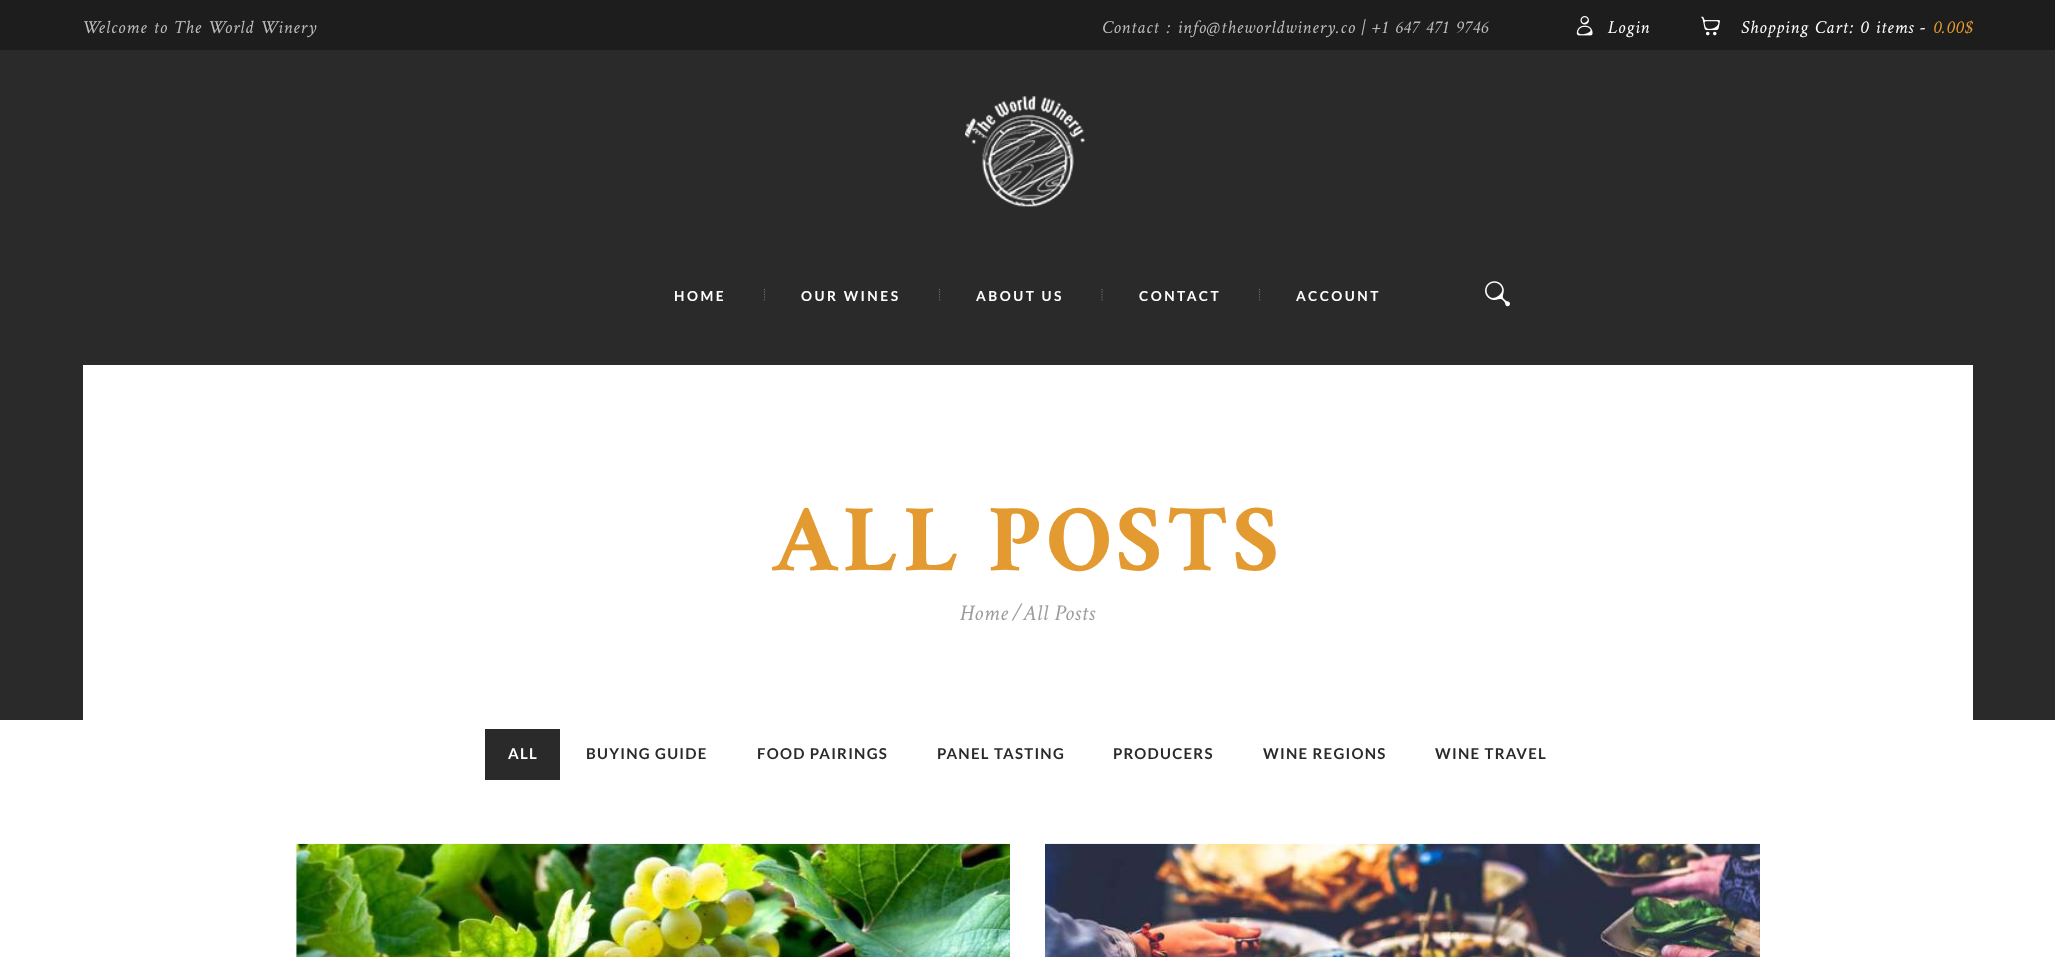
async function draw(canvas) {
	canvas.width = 2055;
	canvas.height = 957;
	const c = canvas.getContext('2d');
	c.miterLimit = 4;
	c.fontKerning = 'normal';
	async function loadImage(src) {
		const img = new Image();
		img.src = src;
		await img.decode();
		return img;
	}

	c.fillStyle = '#fff';
	c.fillRect(0, 0, 2055, 957);
	c.fillStyle = '#2a2a2a';
	c.fillRect(0, 50, 2055, 670);
	c.fillStyle = '#1d1d1d';
	c.fillRect(0, 0, 2055, 50);
	c.letterSpacing = '0.75px';
	c.wordSpacing = '1.25px';
	c.font = 'italic 18.6px Crimson Text';
	c.fillStyle = '#bbb';
	c.fillText('Welcome to The World Winery', 82, 33);
	c.fillText('Contact : info@theworldwinery.co | +1 647 471 9746', 1102, 33);
	c.drawImage(await loadImage('img1.png'), 1576, 16, 17, 20);
	c.wordSpacing = '0px';
	c.fillStyle = '#fff';
	c.fillText('Login', 1608, 33);
	c.drawImage(await loadImage('img2.png'), 1701, 16, 19, 20);
	c.wordSpacing = '1.25px';
	c.fillText('Shopping Cart:', 1741, 33);
	c.fillText('0 items', 1860, 33);
	c.wordSpacing = '0px';
	c.fillText('-', 1920, 33);
	c.fillStyle = '#e39a31';
	c.fillText('0.00$', 1933, 33);
	c.drawImage(await loadImage('img3.png'), 965, 96, 121, 111);
	c.letterSpacing = '2.5px';
	c.font = 'bold 13.75px Lato';
	c.fillStyle = '#fff';
	c.fillText('HOME', 674, 301);
	c.beginPath();
	c.moveTo(764.5, 289);
	c.lineTo(764.5, 301);
	c.strokeStyle = '#6a6a6a';
	c.lineWidth = 1.2;
	c.setLineDash([1.25, 1.25]);
	c.stroke();
	c.fillText('OUR WINES', 801, 301);
	c.beginPath();
	c.moveTo(939.5, 289);
	c.lineTo(939.5, 301);
	c.stroke();
	c.fillText('ABOUT US', 976, 301);
	c.beginPath();
	c.moveTo(1102, 289);
	c.lineTo(1102, 301);
	c.stroke();
	c.fillText('CONTACT', 1139, 301);
	c.beginPath();
	c.moveTo(1259.5, 289);
	c.lineTo(1259.5, 301);
	c.stroke();
	c.fillText('ACCOUNT', 1296, 301);
	c.drawImage(await loadImage('img4.png'), 1485, 281, 25, 26);
	c.fillRect(83, 365, 1890, 355);
	c.letterSpacing = '4.75px';
	c.font = 'bold 95.5px Crimson Text';
	c.fillStyle = '#e39a31';
	c.fillText('ALL POSTS', 771, 570);
	c.letterSpacing = '0.6px';
	c.font = 'italic 22.5px Crimson Text';
	c.fillStyle = '#9d9c9c';
	for (const [text, x, y] of [
		['Home', 960, 620],
		['All Posts', 1023, 620],
		['/', 1012, 620],
	]) {
		c.fillText(text, x, y);
	}
	c.fillStyle = '#2a2a2a';
	c.fillRect(485, 729, 75, 51);
	c.letterSpacing = '1.25px';
	c.font = 'bold 15px Lato';
	c.fillStyle = '#fff';
	c.fillText('ALL', 508, 759);
	c.fillStyle = '#2a2a2a';
	for (const [text, x, y] of [
		['BUYING GUIDE', 586, 759],
		['FOOD PAIRINGS', 757, 759],
		['PANEL TASTING', 937, 759],
		['PRODUCERS', 1113, 759],
		['WINE REGIONS', 1263, 759],
		['WINE TRAVEL', 1435, 759],
	]) {
		c.fillText(text, x, y);
	}
	c.drawImage(await loadImage('img5.png'), 296, 843, 714, 114);
	c.drawImage(await loadImage('img6.png'), 1045, 843, 715, 114);
}

draw(document.querySelector('canvas'));
